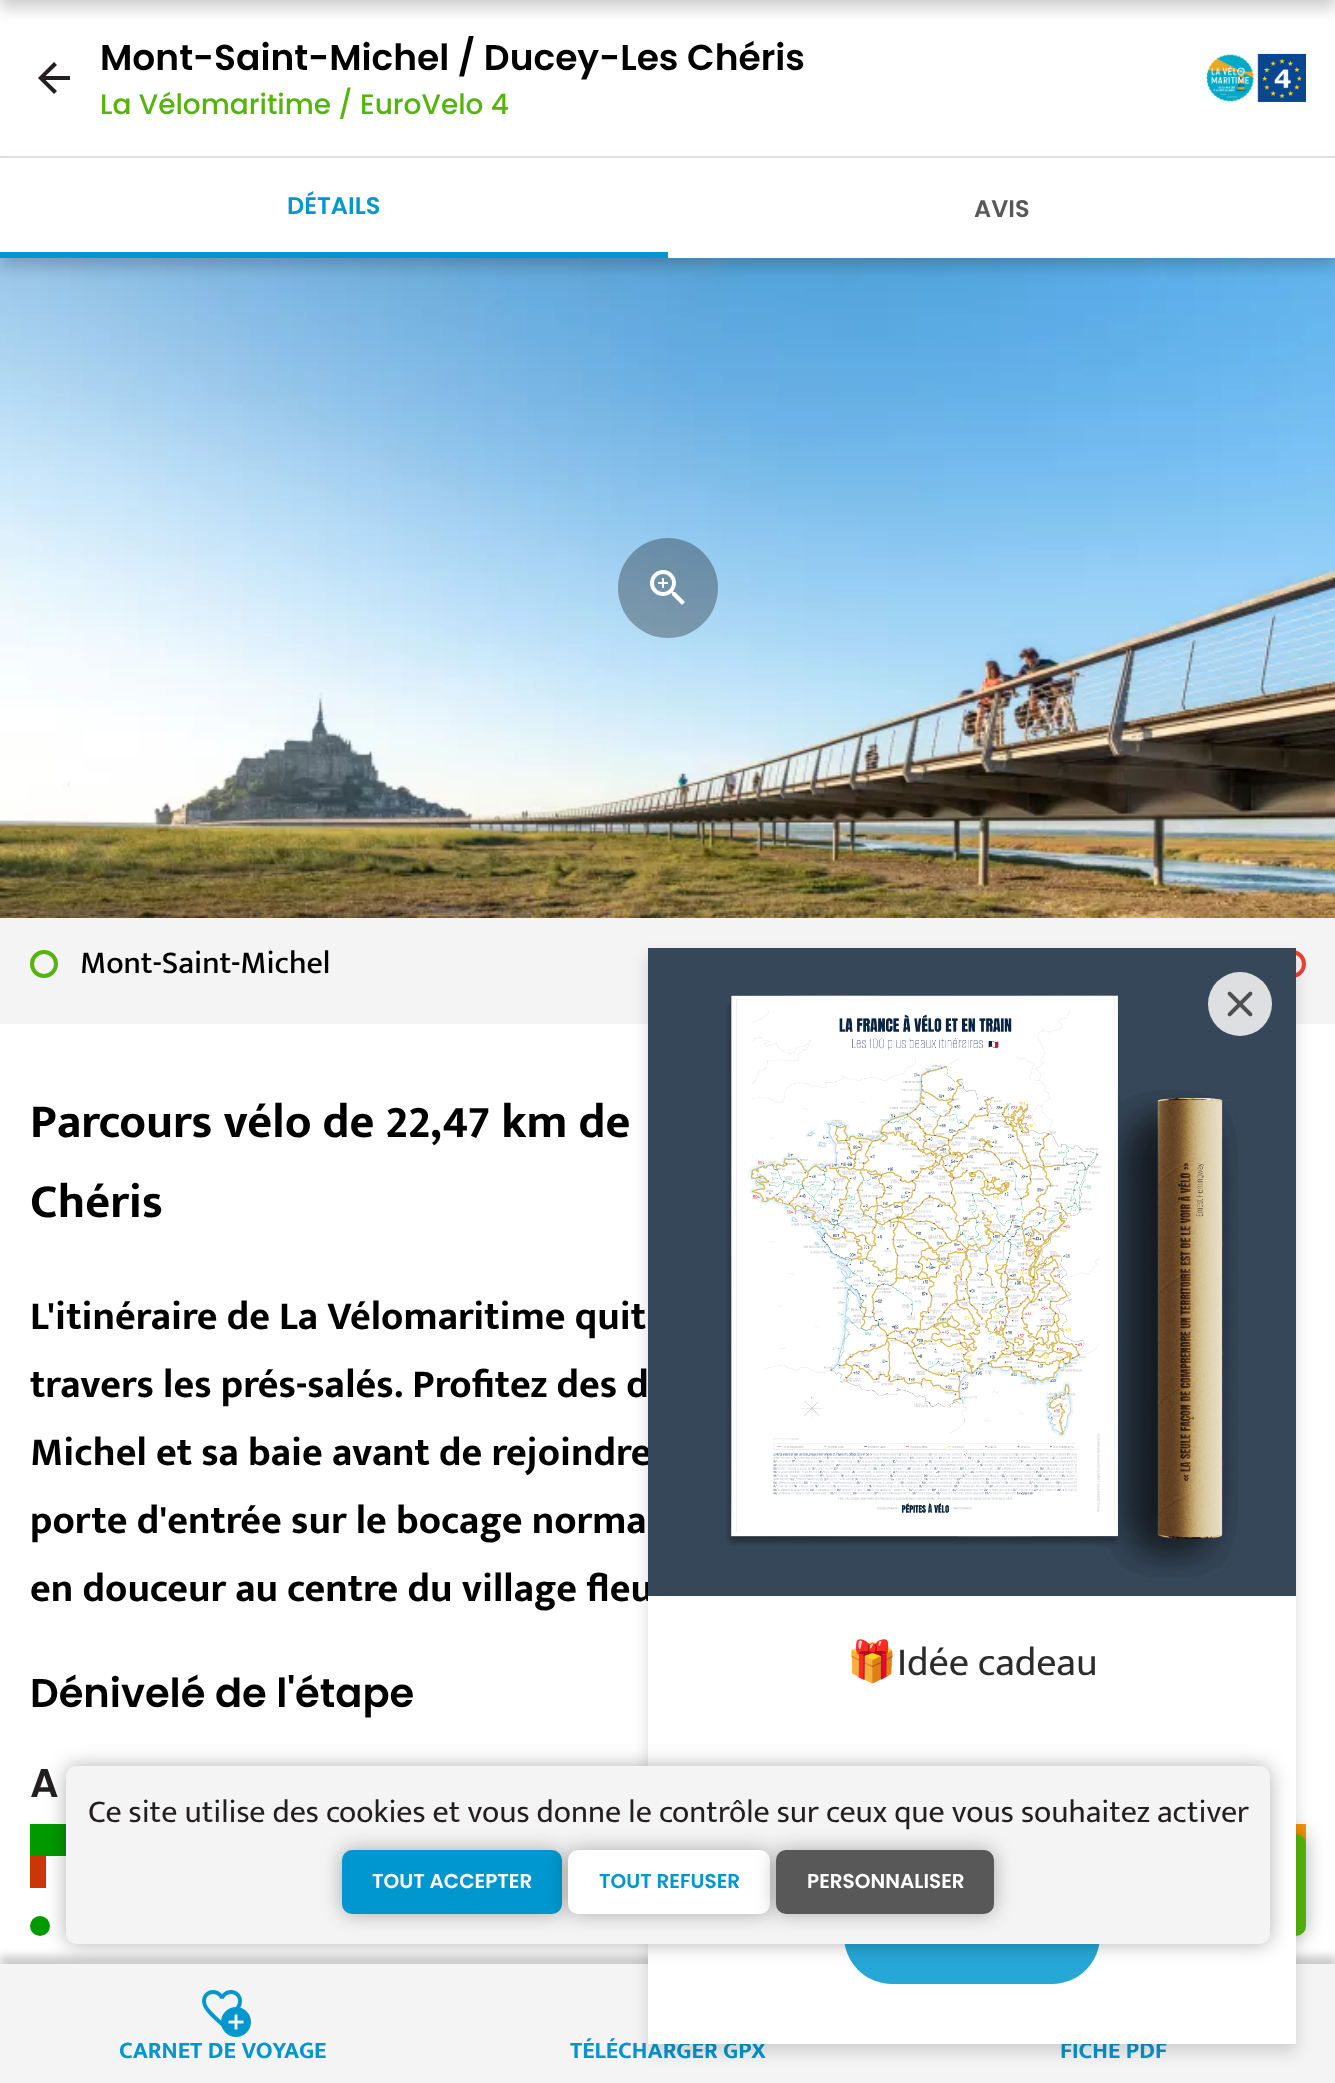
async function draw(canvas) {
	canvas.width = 1335;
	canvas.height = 2083;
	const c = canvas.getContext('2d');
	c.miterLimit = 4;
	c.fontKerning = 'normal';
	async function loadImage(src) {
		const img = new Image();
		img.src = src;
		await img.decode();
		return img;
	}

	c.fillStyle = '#fff';
	c.fillRect(0, 0, 1335, 2083);
	c.fillStyle = '#00000033';
	c.filter = 'blur(8px)';
	c.beginPath();
	c.rect(0, -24, 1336, 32);
	c.fill();
	c.filter = 'none';
	c.drawImage(await loadImage('img2.png'), 0, 258, 1335, 660);
	c.filter = 'blur(8px)';
	c.beginPath();
	c.rect(0, 166, 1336, 100);
	c.fill();
	c.filter = 'none';
	c.fillStyle = '#fff';
	c.fillRect(1, 153, 1334, 3);
	c.fillStyle = '#dfdfdf';
	c.fillRect(0, 156, 1335, 2);
	c.fillStyle = '#231f20';
	c.beginPath();
	c.moveTo(70, 76);
	c.lineTo(70, 80);
	c.lineTo(45.5, 80);
	c.lineTo(57, 91);
	c.lineTo(54, 94);
	c.lineTo(38, 78);
	c.lineTo(54, 62);
	c.lineTo(57, 65);
	c.lineTo(45.5, 76);
	c.closePath();
	c.fill();
	c.font = '600 36px Poppins';
	c.fillStyle = '#000';
	c.fillText('Mont-Saint-Michel / Ducey-Les Chéris', 100, 70);
	c.font = '500 28px Poppins';
	c.fillStyle = '#54b40b';
	c.fillText('La Vélomaritime / EuroVelo 4', 100, 114);
	c.drawImage(await loadImage('img1.png'), 1206, 53, 100, 49);
	c.fillStyle = '#fff';
	c.fillRect(0, 158, 1335, 100);
	c.fillStyle = '#0096cf';
	c.fillRect(0, 252, 668, 6);
	c.font = '600 24px Poppins';
	c.fillText('DÉTAILS', 287, 214);
	c.fillStyle = '#585858';
	c.fillText('AVIS', 974, 217);
	c.fillStyle = '#0000004d';
	c.beginPath();
	c.arc(668, 588, 50, 0, 2 * Math.PI);
	c.fill();
	c.drawImage(await loadImage('img3.png'), 650, 570, 35, 35);
	c.fillStyle = '#f4f4f4';
	c.fillRect(0, 918, 1335, 106);
	c.beginPath();
	c.arc(44, 964, 12, 0, 2 * Math.PI);
	c.strokeStyle = '#54b40b';
	c.lineWidth = 4;
	c.stroke();
	c.font = '500 32px Mukta Mahee';
	c.fillStyle = '#000';
	c.fillText('Mont-Saint-Michel', 80, 973);
	c.beginPath();
	c.arc(1292, 964, 12, 0, 2 * Math.PI);
	c.strokeStyle = '#ef4136';
	c.stroke();
	c.font = 'bold 48px Mukta Mahee';
	c.fillText('Parcours vélo de 22,47 km de', 30, 1137);
	c.fillText('Chéris', 30, 1217);
	c.font = 'bold 40px Mukta Mahee';
	for (const [text, x, y] of [
		['L\'itinéraire de La Vélomaritime quit', 30, 1329],
		['travers les prés-salés. Profitez des d', 30, 1397],
		['Michel et sa baie avant de rejoindre', 30, 1465],
		['porte d\'entrée sur le bocage norma', 30, 1533],
		['en douceur au centre du village fleu', 30, 1601],
	]) {
		c.fillText(text, x, y);
	}
	c.font = '600 40px Poppins';
	c.fillText('Dénivelé de l\'étape', 30, 1707);
	c.fillStyle = '#231f20';
	c.fillText('A', 30, 1797);
	for (const [x, y, w, h, color] of [
		[30, 1824, 36, 32, '#090'],
		[1296, 1824, 10, 20, '#f90'],
		[30, 1856, 16, 32, '#cc3607'],
	]) {
		c.fillStyle = color;
		c.fillRect(x, y, w, h);
	}
	c.fillStyle = '#090';
	c.beginPath();
	c.arc(40, 1926, 10, 0, 2 * Math.PI);
	c.fill();
	c.fillStyle = '#00000033';
	c.filter = 'blur(4px)';
	c.beginPath();
	c.rect(0, 1956, 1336, 120);
	c.fill();
	c.filter = 'none';
	c.fillStyle = '#f4f4f4';
	c.fillRect(0, 1964, 1335, 119);
	c.fillStyle = '#0000004d';
	c.filter = 'blur(10px)';
	c.beginPath();
	c.roundRect(1086, 1834, 220, 102, 10);
	c.fill();
	c.filter = 'none';
	c.fillStyle = '#54b40b';
	c.beginPath();
	c.roundRect(1086, 1834, 220, 102, 10);
	c.fill();
	c.drawImage(await loadImage('img4.png'), 202, 1990, 40, 37);
	c.drawImage(await loadImage('img5.png'), 221, 2007, 30, 30);
	c.font = 'bold 24px Mukta Mahee';
	c.fillStyle = '#0096cf';
	for (const [text, x, y] of [
		['CARNET DE VOYAGE', 119, 2058],
		['TÉLÉCHARGER GPX', 570, 2058],
		['FICHE PDF', 1060, 2058],
	]) {
		c.fillText(text, x, y);
	}
	c.fillStyle = '#00000026';
	c.filter = 'blur(8px)';
	c.beginPath();
	c.rect(648, 956, 648, 1096);
	c.fill();
	c.filter = 'none';
	c.drawImage(await loadImage('img7.png'), 648, 948, 648, 648);
	c.fillStyle = '#dedfe0';
	c.beginPath();
	c.arc(1240, 1004, 32, 0, 2 * Math.PI);
	c.fill();
	c.drawImage(await loadImage('img6.png'), 1227, 991, 26, 26);
	c.fillStyle = '#fff';
	c.fillRect(648, 1596, 648, 448);
	c.font = '40px Noto Color Emoji';
	c.fillStyle = '#2c2c2c';
	c.fillText('🎁', 847, 1675);
	c.font = '40px Mukta Mahee';
	c.fillText('Idée cadeau', 897, 1675);
	c.fillStyle = '#26a7d6';
	c.beginPath();
	c.roundRect(844, 1888, 256, 96, 48);
	c.fill();
	c.fillStyle = '#0000004d';
	c.filter = 'blur(10px)';
	c.beginPath();
	c.roundRect(66, 1766, 1204, 178, 10);
	c.fill();
	c.filter = 'none';
	c.fillStyle = '#f4f4f4';
	c.beginPath();
	c.roundRect(66, 1766, 1204, 178, 10);
	c.fill();
	c.font = '32px Mukta Mahee';
	c.fillStyle = '#231f20';
	c.fillText('Ce site utilise des cookies et vous donne le contrôle sur ceux que vous souhaitez activer', 88, 1822);
	c.fillStyle = '#0000004d';
	c.filter = 'blur(10px)';
	c.beginPath();
	c.roundRect(342, 1850, 220, 64, 10);
	c.fill();
	c.filter = 'none';
	c.fillStyle = '#0096cf';
	c.beginPath();
	c.roundRect(342, 1850, 220, 64, 10);
	c.fill();
	c.font = '600 20px Poppins';
	c.fillStyle = '#fff';
	c.fillText('TOUT ACCEPTER', 372, 1888);
	c.fillStyle = '#0000004d';
	c.filter = 'blur(10px)';
	c.beginPath();
	c.roundRect(568, 1850, 202, 64, 10);
	c.fill();
	c.filter = 'none';
	c.fillStyle = '#fff';
	c.beginPath();
	c.roundRect(568, 1850, 202, 64, 10);
	c.fill();
	c.fillStyle = '#0096cf';
	c.fillText('TOUT REFUSER', 599, 1888);
	c.fillStyle = '#0000004d';
	c.filter = 'blur(10px)';
	c.beginPath();
	c.roundRect(776, 1850, 218, 64, 10);
	c.fill();
	c.filter = 'none';
	c.fillStyle = '#585858';
	c.beginPath();
	c.roundRect(776, 1850, 218, 64, 10);
	c.fill();
	c.fillStyle = '#fff';
	c.fillText('PERSONNALISER', 807, 1888);
}

draw(document.querySelector('canvas'));
